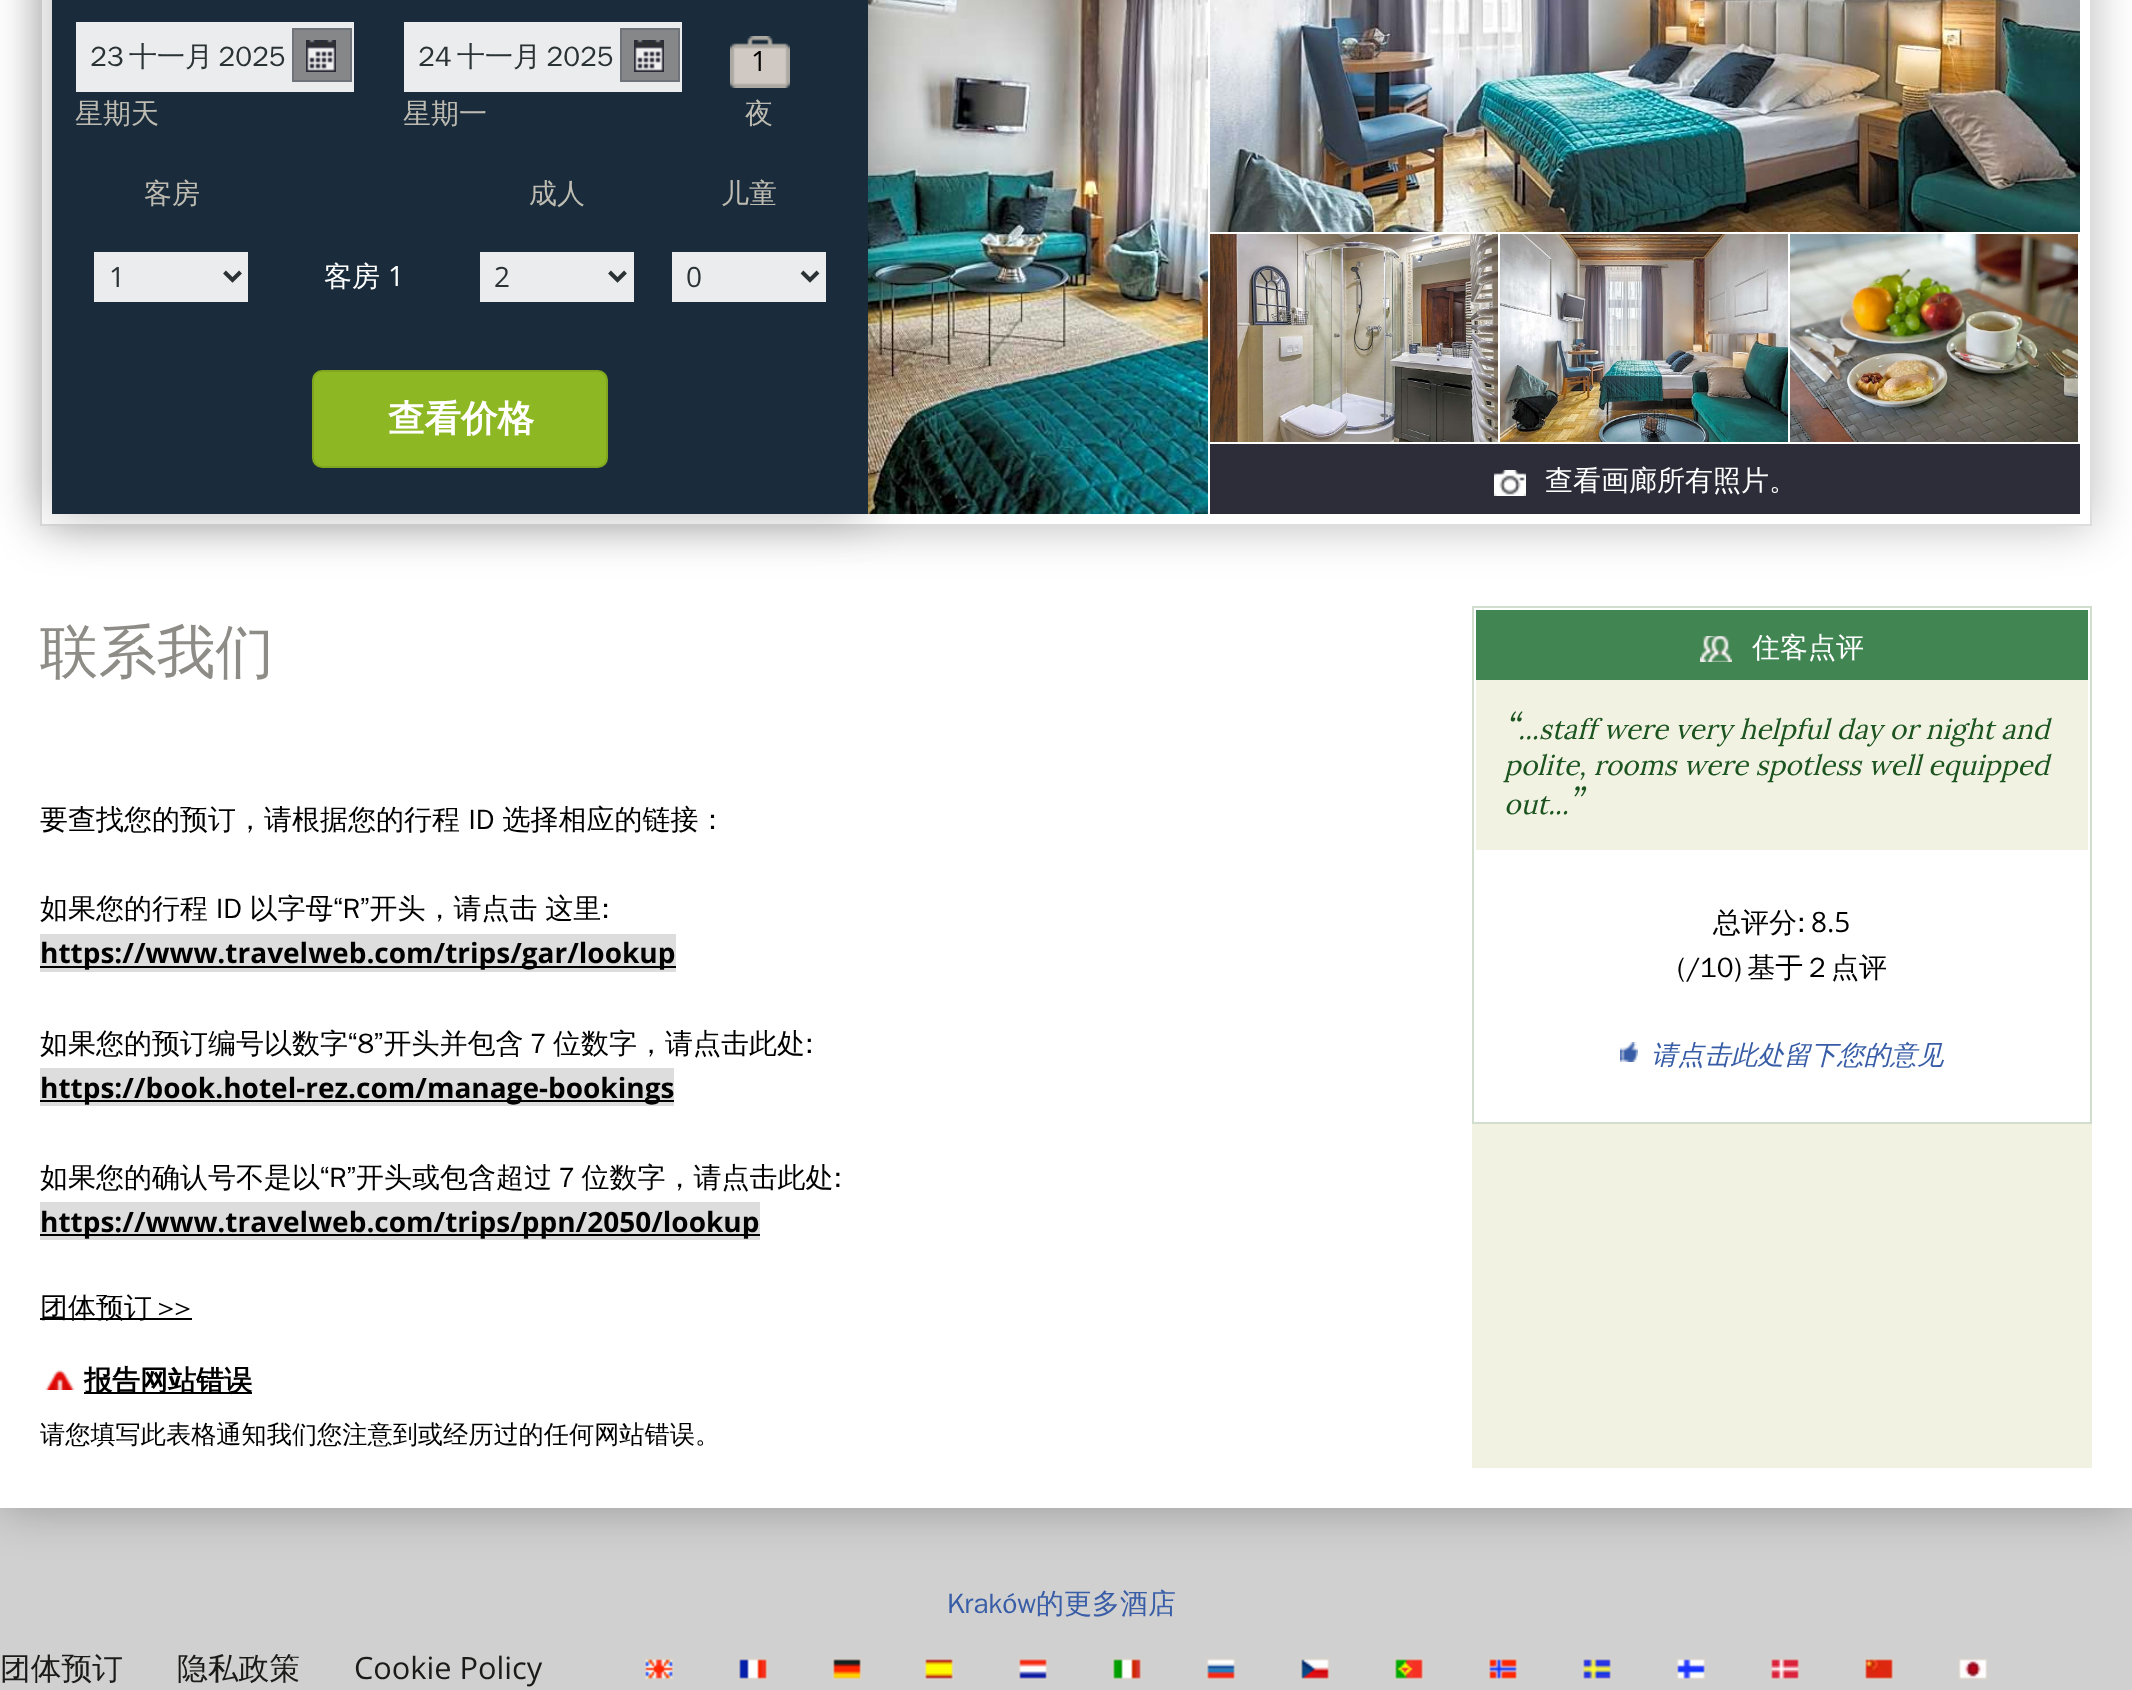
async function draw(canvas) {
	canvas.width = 2132;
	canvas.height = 1690;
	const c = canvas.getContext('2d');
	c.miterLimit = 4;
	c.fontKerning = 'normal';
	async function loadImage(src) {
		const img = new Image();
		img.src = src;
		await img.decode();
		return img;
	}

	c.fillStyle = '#d0d0d0';
	c.fillRect(0, 0, 2132, 1690);
	c.fillStyle = '#00000045';
	c.filter = 'blur(24px)';
	c.beginPath();
	c.rect(0, -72, 2132, 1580);
	c.fill();
	c.filter = 'none';
	c.fillStyle = '#fff';
	c.fillRect(0, 0, 2132, 1508);
	c.save();
	c.beginPath();
	c.moveTo(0, 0);
	c.lineTo(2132, 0);
	c.lineTo(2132, 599);
	c.lineTo(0, 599);
	c.closePath();
	c.moveTo(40, -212);
	c.lineTo(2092, -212);
	c.lineTo(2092, 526);
	c.lineTo(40, 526);
	c.closePath();
	c.clip('evenodd');
	c.fillStyle = '#00000045';
	c.filter = 'blur(24px)';
	c.beginPath();
	c.rect(40, -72, 2052, 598);
	c.fill();
	c.filter = 'none';
	c.restore();
	c.strokeStyle = '#ddd';
	c.lineWidth = 2;
	c.strokeRect(41, -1, 2050, 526);
	c.drawImage(await loadImage('img3.png'), 868, 0, 340, 514);
	c.fillStyle = '#00000045';
	c.filter = 'blur(24px)';
	c.beginPath();
	c.rect(52, -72, 816, 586);
	c.fill();
	c.filter = 'none';
	for (const [x, y, w, h, color] of [
		[52, 0, 816, 514, '#1a2c3b'],
		[76, 22, 278, 70, '#ebeced'],
		[294, 30, 56, 50, '#868788'],
	]) {
		c.fillStyle = color;
		c.fillRect(x, y, w, h);
	}
	c.drawImage(await loadImage('img1.png'), 306, 40, 30, 32);
	c.strokeStyle = '#6e747a';
	c.strokeRect(293, 29, 58, 52);
	c.wordSpacing = '-3px';
	c.font = '500 28px WenQuanYi Zen Hei';
	c.fillStyle = '#2a3235';
	c.fillText('23 十一月 2025', 90, 66);
	c.wordSpacing = '0px';
	c.fillStyle = '#bebcb2';
	c.fillText('星期天', 75, 123);
	c.fillStyle = '#ebeced';
	c.fillRect(404, 22, 278, 70);
	c.fillStyle = '#868788';
	c.fillRect(622, 30, 56, 50);
	c.drawImage(await loadImage('img1.png'), 634, 40, 30, 32);
	c.strokeRect(621, 29, 58, 52);
	c.wordSpacing = '-3px';
	c.fillStyle = '#2a3235';
	c.fillText('24 十一月 2025', 418, 66);
	c.wordSpacing = '0px';
	c.fillStyle = '#bebcb2';
	c.fillText('星期一', 403, 123);
	c.drawImage(await loadImage('img2.png'), 730, 36, 60, 52);
	c.font = '28px Open Sans';
	c.fillStyle = '#000';
	c.fillText('1', 751, 71);
	c.font = '500 28px WenQuanYi Zen Hei';
	c.fillStyle = '#bebcb2';
	for (const [text, x, y] of [
		['夜', 745, 123],
		['客房', 144, 203],
		['成人', 529, 203],
		['儿童', 721, 203],
	]) {
		c.fillText(text, x, y);
	}
	c.fillStyle = '#ebeced';
	c.fillRect(94, 252, 154, 50);
	c.beginPath();
	c.moveTo(224.5, 272);
	c.lineTo(232.5, 280);
	c.lineTo(240.5, 272);
	c.strokeStyle = '#2a3235';
	c.lineWidth = 4;
	c.stroke();
	c.font = '28px Open Sans';
	c.fillStyle = '#2a3235';
	c.fillText('1', 109, 287);
	c.font = '500 28px WenQuanYi Zen Hei';
	c.fillStyle = '#fff';
	c.fillText('客房', 324, 286);
	c.font = '28px Open Sans';
	c.fillText('1', 388, 286);
	c.fillStyle = '#ebeced';
	c.fillRect(480, 252, 154, 50);
	c.beginPath();
	c.moveTo(609.5, 272);
	c.lineTo(617.5, 280);
	c.lineTo(625.5, 272);
	c.stroke();
	c.fillStyle = '#2a3235';
	c.fillText('2', 494, 287);
	c.fillStyle = '#ebeced';
	c.fillRect(672, 252, 154, 50);
	c.beginPath();
	c.moveTo(802, 272);
	c.lineTo(810, 280);
	c.lineTo(818, 272);
	c.stroke();
	c.fillStyle = '#2a3235';
	c.fillText('0', 686, 287);
	c.fillStyle = '#8eb724';
	c.beginPath();
	c.roundRect(313, 371, 294, 96, 9);
	c.fill();
	c.strokeStyle = '#80a51e';
	c.lineWidth = 2;
	c.stroke();
	c.font = 'bold 36.5px WenQuanYi Zen Hei';
	c.fillStyle = '#fff';
	c.fillText('查看价格', 388, 431);
	c.fillStyle = '#2d2c39';
	c.fillRect(1210, 444, 870, 70);
	c.drawImage(await loadImage('img4.png'), 1210, 0, 870, 232);
	c.drawImage(await loadImage('img5.png'), 1210, 234, 288, 208);
	c.drawImage(await loadImage('img6.png'), 1500, 234, 288, 208);
	c.drawImage(await loadImage('img7.png'), 1790, 234, 288, 208);
	c.drawImage(await loadImage('img8.png'), 1494, 470, 32, 26);
	c.font = '500 28px WenQuanYi Zen Hei';
	c.fillStyle = '#fff';
	c.fillText('查看画廊所有照片。', 1545, 490);
	c.font = '500 58.5px WenQuanYi Zen Hei';
	c.fillStyle = '#8e8c86';
	c.fillText('联系我们', 40, 672);
	c.font = '500 28px WenQuanYi Zen Hei';
	c.fillStyle = '#000';
	c.fillText('要查找您的预订，请根据您的行程 ID 选择相应的链接：', 40, 829);
	c.wordSpacing = '-0.5px';
	c.fillText('如果您的行程 ID 以字母“R”开头，请点击 这里:', 40, 918);
	c.fillStyle = '#ddd';
	c.fillRect(40, 934, 636, 38);
	c.fillStyle = '#000';
	c.fillRect(40, 966, 636, 2);
	c.wordSpacing = '0px';
	c.font = 'bold 28px Open Sans';
	c.fillText('https://www.travelweb.com/trips/gar/lookup', 40, 963);
	c.wordSpacing = '-2px';
	c.font = '500 28px WenQuanYi Zen Hei';
	c.fillText('如果您的预订编号以数字“8”开头并包含 7 位数字，请点击此处:', 40, 1053);
	c.fillStyle = '#ddd';
	c.fillRect(40, 1068, 634, 38);
	c.fillStyle = '#000';
	c.fillRect(40, 1100, 634, 2);
	c.wordSpacing = '0px';
	c.font = 'bold 28px Open Sans';
	c.fillText('https://book.hotel-rez.com/manage-bookings', 40, 1098);
	c.wordSpacing = '-2px';
	c.font = '500 28px WenQuanYi Zen Hei';
	c.fillText('如果您的确认号不是以“R”开头或包含超过 7 位数字，请点击此处:', 40, 1187);
	c.fillStyle = '#ddd';
	c.fillRect(40, 1202, 720, 38);
	c.fillStyle = '#000';
	c.fillRect(40, 1234, 720, 2);
	c.wordSpacing = '0px';
	c.font = 'bold 28px Open Sans';
	c.fillText('https://www.travelweb.com/trips/ppn/2050/lookup', 40, 1232);
	c.fillRect(40, 1318, 152, 2);
	c.wordSpacing = '-3px';
	c.font = '500 28px WenQuanYi Zen Hei';
	c.fillText('团体预订 >>', 40, 1317);
	c.drawImage(await loadImage('img9.png'), 45, 1370, 30, 20);
	c.fillRect(84, 1392, 168, 2);
	c.wordSpacing = '0px';
	c.font = 'bold 28px WenQuanYi Zen Hei';
	c.fillText('报告网站错误', 84, 1390);
	c.font = '500 25.2px WenQuanYi Zen Hei';
	c.fillText('请您填写此表格通知我们您注意到或经历过的任何网站错误。', 40, 1443);
	c.fillStyle = '#f2f2e3';
	c.fillRect(1472, 1124, 620, 344);
	c.strokeStyle = '#d1ddcd';
	c.strokeRect(1473, 607, 618, 516);
	c.fillStyle = '#418553';
	c.fillRect(1476, 610, 612, 70);
	c.drawImage(await loadImage('img10.png'), 1700, 636, 32, 26);
	c.font = '500 28px WenQuanYi Zen Hei';
	c.fillStyle = '#fff';
	c.fillText('住客点评', 1752, 657);
	c.fillStyle = '#f2f2e3';
	c.fillRect(1476, 680, 612, 170);
	c.font = 'italic 36.5px Lora';
	c.fillStyle = '#1b541f';
	c.fillText('“', 1504, 739);
	c.font = 'italic 28px Lora';
	c.fillText('...staff were very helpful day or night and', 1518, 739);
	c.fillText('polite, rooms were spotless well equipped', 1504, 775);
	c.font = 'italic 36.5px Lora';
	c.fillText('”', 1568, 814);
	c.font = 'italic 28px Lora';
	c.fillText('out...', 1504, 814);
	c.font = '500 28px WenQuanYi Zen Hei';
	c.fillStyle = '#000';
	c.fillText('总评分:', 1713, 932);
	c.font = '28px Open Sans';
	c.fillText('8.5', 1811, 932);
	c.wordSpacing = '-3px';
	c.font = '500 28px WenQuanYi Zen Hei';
	c.fillText('(/10) 基于 2 点评', 1677, 977);
	c.drawImage(await loadImage('img11.png'), 1620, 1042, 18, 20);
	c.wordSpacing = '0px';
	c.font = 'italic 500 26.6px WenQuanYi Zen Hei';
	c.fillStyle = '#385da6';
	c.fillText('请点击此处留下您的意见', 1651, 1064);
	c.font = '500 28px WenQuanYi Zen Hei';
	c.fillText('Kraków的更多酒店', 947, 1613);
	c.font = '500 30.75px WenQuanYi Zen Hei';
	c.fillStyle = '#1a1a18';
	c.fillText('团体预订', 0, 1679);
	c.fillText('隐私政策', 177, 1679);
	c.font = '30.75px Open Sans';
	c.fillText('Cookie Policy', 354, 1679);
	c.drawImage(await loadImage('img12.png'), 644, 1658, 30, 22);
	c.drawImage(await loadImage('img13.png'), 738, 1658, 30, 22);
	c.drawImage(await loadImage('img14.png'), 832, 1658, 30, 22);
	c.drawImage(await loadImage('img15.png'), 924, 1658, 30, 22);
	c.drawImage(await loadImage('img16.png'), 1018, 1658, 30, 22);
	c.drawImage(await loadImage('img17.png'), 1112, 1658, 30, 22);
	c.drawImage(await loadImage('img18.png'), 1206, 1658, 30, 22);
	c.drawImage(await loadImage('img19.png'), 1300, 1658, 30, 22);
	c.drawImage(await loadImage('img20.png'), 1394, 1658, 30, 22);
	c.drawImage(await loadImage('img21.png'), 1488, 1658, 30, 22);
	c.drawImage(await loadImage('img22.png'), 1582, 1658, 30, 22);
	c.drawImage(await loadImage('img23.png'), 1676, 1658, 30, 22);
	c.drawImage(await loadImage('img24.png'), 1770, 1658, 30, 22);
	c.drawImage(await loadImage('img25.png'), 1864, 1658, 30, 22);
	c.drawImage(await loadImage('img26.png'), 1958, 1658, 30, 22);
}

draw(document.querySelector('canvas'));
